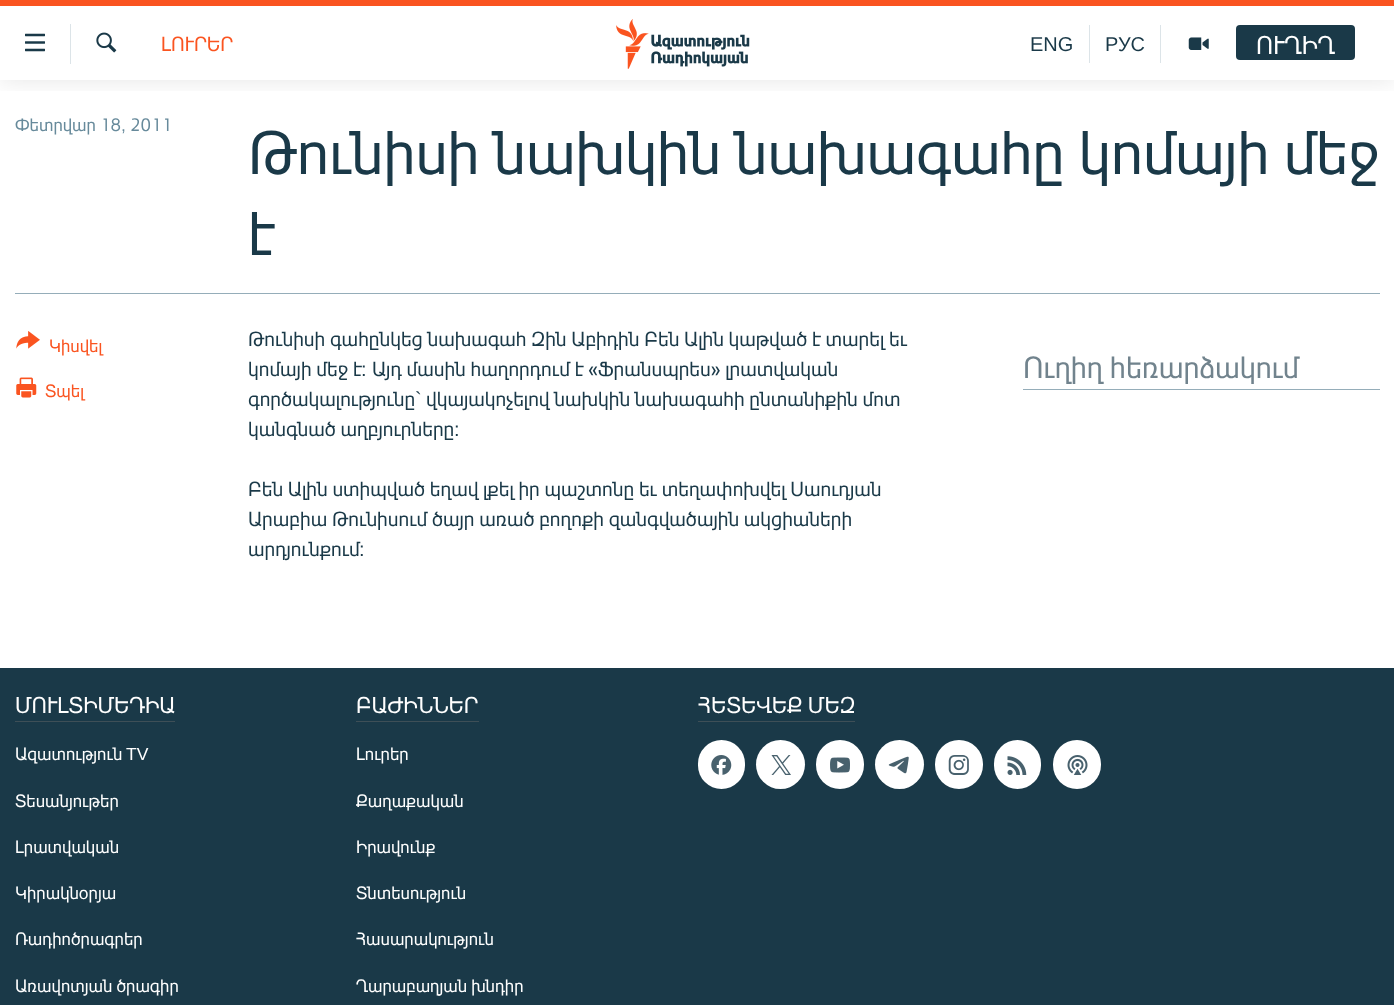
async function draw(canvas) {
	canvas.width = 1394;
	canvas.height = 1005;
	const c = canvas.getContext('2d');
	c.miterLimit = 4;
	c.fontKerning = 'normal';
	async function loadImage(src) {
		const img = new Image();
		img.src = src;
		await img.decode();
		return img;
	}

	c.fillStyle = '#fff';
	c.fillRect(0, 0, 1394, 1005);
	c.save();
	c.beginPath();
	c.rect(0, 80, 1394, 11);
	c.clip();
	c.fillStyle = '#0000001a';
	c.filter = 'blur(12.5px)';
	c.beginPath();
	c.rect(0, 0, 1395, 80);
	c.fill();
	c.filter = 'none';
	c.restore();
	c.fillStyle = '#fa5420';
	c.fillRect(0, 0, 1394, 6);
	c.drawImage(await loadImage('img1.png'), 25, 33, 20, 19);
	c.fillStyle = '#dce4e8';
	c.fillRect(70, 24, 1, 40);
	c.drawImage(await loadImage('img2.png'), 96, 32, 21, 21);
	c.font = '20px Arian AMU';
	c.fillStyle = '#fa5420';
	c.fillText('ԼՈՒՐԵՐ', 161, 51);
	c.drawImage(await loadImage('img3.png'), 616, 19, 134, 50);
	c.fillStyle = '#dce4e8';
	c.fillRect(1089, 25, 1, 38);
	c.font = '20px Liberation Sans';
	c.fillStyle = '#1a3948';
	c.fillText('ENG', 1030, 51);
	c.fillStyle = '#dce4e8';
	c.fillRect(1160, 25, 1, 38);
	c.fillStyle = '#1a3948';
	c.fillText('РУС', 1105, 51);
	c.drawImage(await loadImage('img4.png'), 1188, 37, 21, 13);
	c.beginPath();
	c.roundRect(1236, 25, 119, 35, 4);
	c.fill();
	c.font = '25px Arian AMU';
	c.fillStyle = '#fff';
	c.fillText('ՈՒՂԻՂ', 1256, 54);
	c.font = '17.5px Arian AMU';
	c.fillStyle = '#678a9b';
	c.fillText('Փետրվար 18', 15, 131);
	c.font = '17.5px Liberation Sans';
	c.fillText(',', 121, 131);
	c.font = '17.5px Arian AMU';
	c.fillText('2011', 130, 131);
	c.font = '60px Arian AMU';
	c.fillStyle = '#1a3948';
	c.fillText('Թունիսի նախկին նախագահը կոմայի մեջ', 248, 174);
	c.fillText('է', 248, 255);
	c.fillStyle = '#95adb9';
	c.fillRect(15, 293, 1365, 1);
	c.drawImage(await loadImage('img5.png'), 16, 331, 24, 18);
	c.font = '17.5px Arian AMU';
	c.fillStyle = '#fa5420';
	c.fillText('Կիսվել', 49, 352);
	c.drawImage(await loadImage('img6.png'), 16, 377, 21, 21);
	c.fillText('Տպել', 45, 397);
	c.font = '20px Arian AMU';
	c.fillStyle = '#1a3948';
	c.fillText('Թունիսի գահընկեց նախագահ Զին Աբիդին Բեն Ալին կաթված է տարել եւ', 248, 346);
	c.fillText('կոմայի մեջ է', 248, 376);
	c.font = '20px Liberation Sans';
	c.fillText(':', 361, 376);
	c.font = '20px Arian AMU';
	c.fillText('Այդ մասին հաղորդում է «Ֆրանսպրես» լրատվական', 372, 376);
	c.fillText('գործակալությունը', 248, 406);
	c.font = '20px Liberation Sans';
	c.fillText('`', 415, 406);
	c.font = '20px Arian AMU';
	c.fillText('վկայակոչելով նախկին նախագահի ընտանիքին մոտ', 426, 406);
	c.fillText('կանգնած աղբյուրները', 248, 436);
	c.font = '20px Liberation Sans';
	c.fillText(':', 454, 436);
	c.font = '20px Arian AMU';
	for (const [text, x, y] of [
		['Բեն Ալին ստիպված եղավ լքել իր պաշտոնը եւ տեղափոխվել Սաուդյան', 248, 496],
		['Արաբիա Թունիսում ծայր առած բողոքի զանգվածային ակցիաների', 248, 526],
		['արդյունքում', 248, 556],
	]) {
		c.fillText(text, x, y);
	}
	c.font = '20px Liberation Sans';
	c.fillText(':', 359, 556);
	c.fillStyle = '#95adb9';
	c.fillRect(1023, 389, 357, 1);
	c.font = '30px Arian AMU';
	c.fillStyle = '#71838d';
	c.fillText('Ուղիղ հեռարձակում', 1023, 378);
	c.fillStyle = '#1a3948';
	c.fillRect(0, 668, 1394, 337);
	c.fillStyle = '#3e4f57';
	c.fillRect(15, 721, 160, 1);
	c.font = '22.5px Arian AMU';
	c.fillStyle = '#fff';
	c.fillText('ՄՈՒԼՏԻՄԵԴԻԱ', 15, 713);
	c.font = '17.5px Arian AMU';
	c.fillText('Ազատություն', 15, 760);
	c.font = '17.5px Liberation Sans';
	c.fillText('TV', 126, 760);
	c.font = '17.5px Arian AMU';
	for (const [text, x, y] of [
		['Տեսանյութեր', 15, 807],
		['Լրատվական', 15, 853],
		['Կիրակնօրյա', 15, 899],
		['Ռադիոծրագրեր', 15, 945],
		['Առավոտյան ծրագիր', 15, 992],
	]) {
		c.fillText(text, x, y);
	}
	c.fillStyle = '#3e4f57';
	c.fillRect(356, 721, 123, 1);
	c.font = '22.5px Arian AMU';
	c.fillStyle = '#fff';
	c.fillText('ԲԱԺԻՆՆԵՐ', 356, 713);
	c.font = '17.5px Arian AMU';
	for (const [text, x, y] of [
		['Լուրեր', 356, 760],
		['Քաղաքական', 356, 807],
		['Իրավունք', 356, 853],
		['Տնտեսություն', 356, 899],
		['Հասարակություն', 356, 945],
		['Ղարաբաղյան խնդիր', 356, 992],
	]) {
		c.fillText(text, x, y);
	}
	c.fillStyle = '#3e4f57';
	c.fillRect(698, 721, 157, 1);
	c.font = '22.5px Arian AMU';
	c.fillStyle = '#fff';
	c.fillText('ՀԵՏԵՎԵՔ ՄԵԶ', 698, 713);
	c.beginPath();
	c.roundRect(698, 740, 47, 49, 23.5);
	c.fill();
	c.drawImage(await loadImage('img7.png'), 711, 755, 21, 20);
	c.beginPath();
	c.arc(780.5, 764.5, 24.5, 0, 2 * Math.PI);
	c.fill();
	c.drawImage(await loadImage('img8.png'), 771, 755, 20, 20);
	c.beginPath();
	c.roundRect(816, 740, 48, 49, 24);
	c.fill();
	c.drawImage(await loadImage('img9.png'), 830, 757, 20, 16);
	c.beginPath();
	c.arc(899.5, 764.5, 24.5, 0, 2 * Math.PI);
	c.fill();
	c.drawImage(await loadImage('img10.png'), 888, 756, 21, 18);
	c.beginPath();
	c.roundRect(935, 740, 48, 49, 24);
	c.fill();
	c.drawImage(await loadImage('img11.png'), 948, 755, 21, 20);
	c.beginPath();
	c.roundRect(994, 740, 47, 49, 23.5);
	c.fill();
	c.drawImage(await loadImage('img12.png'), 1007, 756, 20, 19);
	c.beginPath();
	c.roundRect(1053, 740, 48, 49, 24);
	c.fill();
	c.drawImage(await loadImage('img13.png'), 1067, 755, 21, 20);
}

draw(document.querySelector('canvas'));
